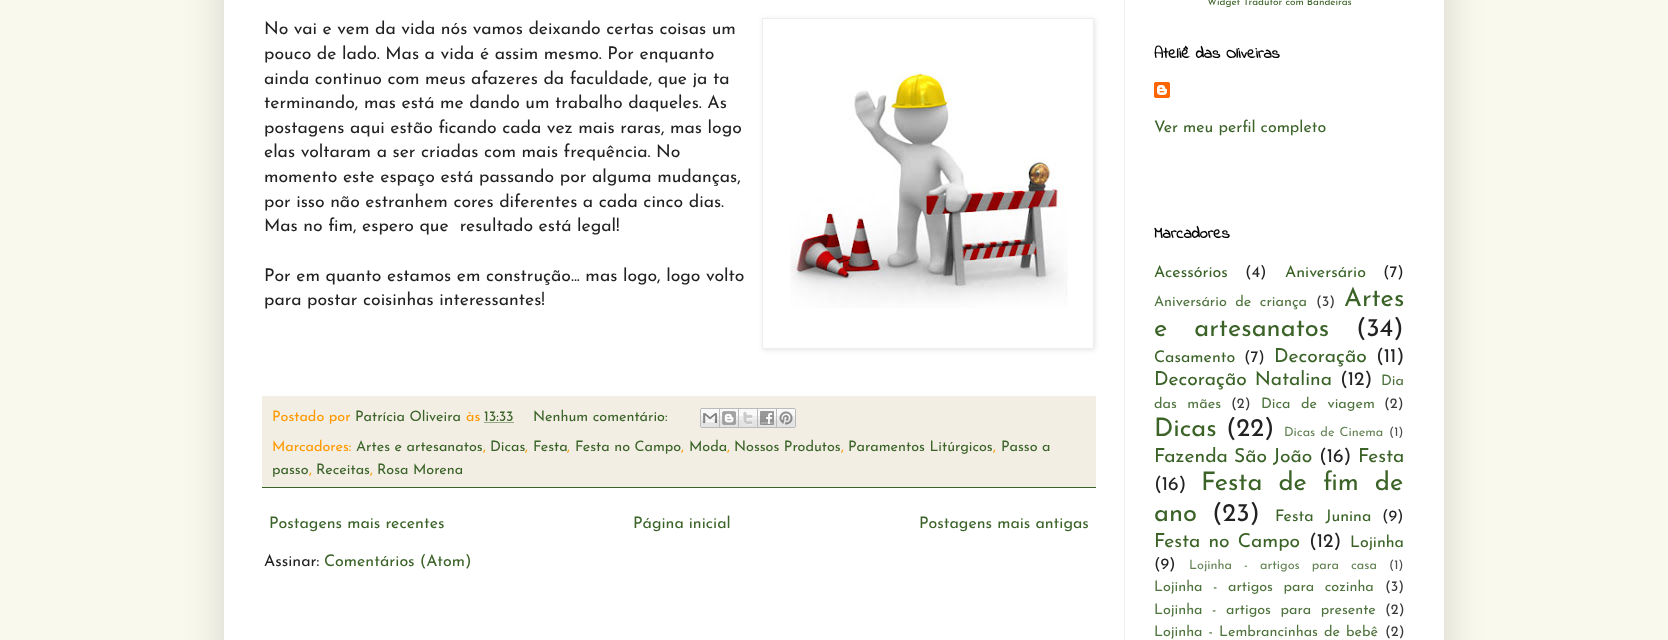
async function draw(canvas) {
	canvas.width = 1668;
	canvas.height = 640;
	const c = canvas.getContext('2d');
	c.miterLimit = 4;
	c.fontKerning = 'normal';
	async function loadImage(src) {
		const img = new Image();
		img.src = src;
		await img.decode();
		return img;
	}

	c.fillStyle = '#f9f9ee';
	c.fillRect(0, 0, 1668, 640);
	c.fillStyle = '#00000026';
	c.filter = 'blur(20px)';
	c.beginPath();
	c.rect(224, -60, 1220, 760);
	c.fill();
	c.filter = 'none';
	c.fillStyle = '#fff';
	c.fillRect(224, 0, 1220, 640);
	c.font = '100 17.6px Josefin Sans';
	c.fillStyle = '#222';
	c.fillText('No vai e vem da vida nós vamos deixando certas coisas um', 264, 34);
	c.save();
	c.beginPath();
	c.moveTo(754, 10);
	c.lineTo(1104, 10);
	c.lineTo(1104, 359);
	c.lineTo(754, 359);
	c.closePath();
	c.moveTo(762, 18);
	c.lineTo(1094, 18);
	c.lineTo(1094, 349);
	c.lineTo(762, 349);
	c.closePath();
	c.clip('evenodd');
	c.fillStyle = '#0000001a';
	c.filter = 'blur(2.5px)';
	c.beginPath();
	c.rect(763, 19, 332, 331);
	c.fill();
	c.filter = 'none';
	c.restore();
	c.strokeStyle = '#eee';
	c.strokeRect(762.5, 18.5, 331, 330);
	c.drawImage(await loadImage('img1.png'), 790, 72, 278, 236);
	for (const [text, x, y] of [
		['pouco de lado. Mas a vida é assim mesmo. Por enquanto', 264, 59],
		['ainda continuo com meus afazeres da faculdade, que ja ta', 264, 84],
		['terminando, mas está me dando um trabalho daqueles. As', 264, 108],
		['postagens aqui estão ficando cada vez mais raras, mas logo', 264, 133],
		['elas voltaram a ser criadas com mais frequência. No', 264, 157],
		['momento este espaço está passando por alguma mudanças,', 264, 182],
		['por isso não estranhem cores diferentes a cada cinco dias.', 264, 207],
		['Mas no fim, espero que  resultado está legal!', 264, 231],
		['Por em quanto estamos em construção... mas logo, logo volto', 264, 281],
		['para postar coisinhas interessantes!', 264, 305],
	]) {
		c.fillText(text, x, y);
	}
	c.fillStyle = '#f2eee4';
	c.fillRect(262, 396, 834, 91);
	c.fillStyle = '#3b6328';
	c.fillRect(262, 487, 834, 1);
	c.font = '100 14.4px Josefin Sans';
	c.fillStyle = '#f90';
	c.fillText('Postado por', 272, 421);
	c.fillStyle = '#3b6328';
	c.fillText('Patrícia Oliveira', 355, 421);
	c.fillStyle = '#f90';
	c.fillText('às', 466, 421);
	c.fillStyle = '#3b6328';
	c.fillText('13:33', 484, 421);
	c.beginPath();
	c.moveTo(484.5, 422.5);
	c.lineTo(514, 422.5);
	c.strokeStyle = '#3b6328';
	c.setLineDash([1, 1]);
	c.stroke();
	c.fillText('Nenhum comentário:', 533, 421);
	c.drawImage(await loadImage('img2.png'), 700, 408, 20, 20);
	c.drawImage(await loadImage('img3.png'), 720, 408, 19, 20);
	c.drawImage(await loadImage('img4.png'), 739, 408, 19, 20);
	c.drawImage(await loadImage('img5.png'), 758, 408, 19, 20);
	c.drawImage(await loadImage('img6.png'), 777, 408, 19, 20);
	c.fillStyle = '#f90';
	c.fillText('Marcadores:', 272, 451);
	c.fillStyle = '#3b6328';
	c.fillText('Artes e artesanatos', 356, 451);
	c.fillStyle = '#f90';
	c.fillText(',', 483, 451);
	c.fillStyle = '#3b6328';
	c.fillText('Dicas', 490, 451);
	c.fillStyle = '#f90';
	c.fillText(',', 525, 451);
	c.fillStyle = '#3b6328';
	c.fillText('Festa', 533, 451);
	c.fillStyle = '#f90';
	c.fillText(',', 567, 451);
	c.fillStyle = '#3b6328';
	c.fillText('Festa no Campo', 575, 451);
	c.fillStyle = '#f90';
	c.fillText(',', 681, 451);
	c.fillStyle = '#3b6328';
	c.fillText('Moda', 689, 451);
	c.fillStyle = '#f90';
	c.fillText(',', 727, 451);
	c.fillStyle = '#3b6328';
	c.fillText('Nossos Produtos', 734, 451);
	c.fillStyle = '#f90';
	c.fillText(',', 841, 451);
	c.fillStyle = '#3b6328';
	c.fillText('Paramentos Litúrgicos', 848, 451);
	c.fillStyle = '#f90';
	c.fillText(',', 993, 451);
	c.fillStyle = '#3b6328';
	c.fillText('Passo a', 1001, 451);
	c.fillText('passo', 272, 474);
	c.fillStyle = '#f90';
	c.fillText(',', 309, 474);
	c.fillStyle = '#3b6328';
	c.fillText('Receitas', 316, 474);
	c.fillStyle = '#f90';
	c.fillText(',', 370, 474);
	c.fillStyle = '#3b6328';
	c.fillText('Rosa Morena', 377, 474);
	c.font = '100 16px Josefin Sans';
	for (const [text, x, y] of [
		['Postagens mais recentes', 269, 528],
		['Página inicial', 633, 528],
		['Postagens mais antigas', 919, 528],
	]) {
		c.fillText(text, x, y);
	}
	c.fillStyle = '#222';
	c.fillText('Assinar:', 264, 566);
	c.fillStyle = '#3b6328';
	c.fillText('Comentários (Atom)', 324, 566);
	c.font = '100 10px Josefin Sans';
	c.fillText('Widget Tradutor com Bandeiras', 1207, 5);
	c.font = 'bold 16px Indie Flower';
	c.fillStyle = '#000';
	c.fillText('Ateliê das Oliveiras', 1154, 58);
	c.drawImage(await loadImage('img7.png'), 1154, 82, 16, 16);
	c.font = '100 16px Josefin Sans';
	c.fillStyle = '#3b6328';
	c.fillText('Ver meu perfil completo', 1154, 132);
	c.font = 'bold 16px Indie Flower';
	c.fillStyle = '#000';
	c.fillText('Marcadores', 1154, 238);
	c.font = '100 16px Josefin Sans';
	c.fillStyle = '#3b6328';
	c.fillText('Acessórios', 1154, 277);
	c.fillStyle = '#222';
	c.fillText('(4)', 1245, 277);
	c.fillStyle = '#3b6328';
	c.fillText('Aniversário', 1285, 277);
	c.fillStyle = '#222';
	c.fillText('(7)', 1383, 277);
	c.wordSpacing = '4px';
	c.font = '100 14.4px Josefin Sans';
	c.fillStyle = '#4f733e';
	c.fillText('Aniversário de criança', 1154, 306);
	c.wordSpacing = '0px';
	c.fillStyle = '#383838';
	c.fillText('(3)', 1316, 306);
	c.font = '100 25.5px Josefin Sans';
	c.fillStyle = '#3b6328';
	c.fillText('Artes', 1344, 306);
	c.wordSpacing = '19px';
	c.fillText('e artesanatos', 1154, 336);
	c.wordSpacing = '0px';
	c.fillStyle = '#222';
	c.fillText('(34)', 1356, 336);
	c.font = '100 16px Josefin Sans';
	c.fillStyle = '#3b6328';
	c.fillText('Casamento', 1154, 362);
	c.fillStyle = '#222';
	c.fillText('(7)', 1244, 362);
	c.font = '100 19.25px Josefin Sans';
	c.fillStyle = '#3b6328';
	c.fillText('Decoração', 1274, 362);
	c.fillStyle = '#222';
	c.fillText('(11)', 1376, 362);
	c.wordSpacing = '2px';
	c.fillStyle = '#3b6328';
	c.fillText('Decoração Natalina', 1154, 385);
	c.wordSpacing = '0px';
	c.fillStyle = '#222';
	c.fillText('(12)', 1340, 385);
	c.font = '100 14.4px Josefin Sans';
	c.fillStyle = '#4f733e';
	c.fillText('Dia', 1381, 385);
	c.wordSpacing = '6px';
	c.fillText('das mães', 1154, 408);
	c.wordSpacing = '0px';
	c.fillStyle = '#383838';
	c.fillText('(2)', 1231, 408);
	c.wordSpacing = '6px';
	c.fillStyle = '#4f733e';
	c.fillText('Dica de viagem', 1261, 408);
	c.wordSpacing = '0px';
	c.fillStyle = '#383838';
	c.fillText('(2)', 1384, 408);
	c.font = '100 25.5px Josefin Sans';
	c.fillStyle = '#3b6328';
	c.fillText('Dicas', 1154, 436);
	c.fillStyle = '#222';
	c.fillText('(22)', 1226, 436);
	c.wordSpacing = '1px';
	c.font = '100 12.75px Josefin Sans';
	c.fillStyle = '#628253';
	c.fillText('Dicas de Cinema', 1284, 436);
	c.wordSpacing = '0px';
	c.fillStyle = '#4e4e4e';
	c.fillText('(1)', 1389, 436);
	c.font = '100 19.25px Josefin Sans';
	c.fillStyle = '#3b6328';
	c.fillText('Fazenda São João', 1154, 462);
	c.fillStyle = '#222';
	c.fillText('(16)', 1319, 462);
	c.fillStyle = '#3b6328';
	c.fillText('Festa', 1358, 462);
	c.fillStyle = '#222';
	c.fillText('(16)', 1154, 490);
	c.wordSpacing = '8px';
	c.font = '100 25.5px Josefin Sans';
	c.fillStyle = '#3b6328';
	c.fillText('Festa de fim de', 1201, 490);
	c.wordSpacing = '0px';
	c.fillText('ano', 1154, 521);
	c.fillStyle = '#222';
	c.fillText('(23)', 1212, 521);
	c.wordSpacing = '7px';
	c.font = '100 16px Josefin Sans';
	c.fillStyle = '#3b6328';
	c.fillText('Festa Junina', 1275, 521);
	c.wordSpacing = '0px';
	c.fillStyle = '#222';
	c.fillText('(9)', 1382, 521);
	c.wordSpacing = '2px';
	c.font = '100 19.25px Josefin Sans';
	c.fillStyle = '#3b6328';
	c.fillText('Festa no Campo', 1154, 547);
	c.wordSpacing = '0px';
	c.fillStyle = '#222';
	c.fillText('(12)', 1309, 547);
	c.font = '100 16px Josefin Sans';
	c.fillStyle = '#3b6328';
	c.fillText('Lojinha', 1350, 547);
	c.fillStyle = '#222';
	c.fillText('(9)', 1154, 569);
	c.wordSpacing = '8px';
	c.font = '100 12.75px Josefin Sans';
	c.fillStyle = '#628253';
	c.fillText('Lojinha - artigos para casa', 1189, 569);
	c.wordSpacing = '0px';
	c.fillStyle = '#4e4e4e';
	c.fillText('(1)', 1389, 569);
	c.wordSpacing = '6px';
	c.font = '100 14.4px Josefin Sans';
	c.fillStyle = '#4f733e';
	c.fillText('Lojinha - artigos para cozinha', 1154, 591);
	c.wordSpacing = '0px';
	c.fillStyle = '#383838';
	c.fillText('(3)', 1385, 591);
	c.wordSpacing = '5px';
	c.fillStyle = '#4f733e';
	c.fillText('Lojinha - artigos para presente', 1154, 614);
	c.wordSpacing = '0px';
	c.fillStyle = '#383838';
	c.fillText('(2)', 1385, 614);
	c.wordSpacing = '1.5px';
	c.fillStyle = '#4f733e';
	c.fillText('Lojinha - Lembrancinhas de bebê', 1154, 636);
	c.wordSpacing = '0px';
	c.fillStyle = '#383838';
	c.fillText('(2)', 1385, 636);
	c.fillStyle = '#eee';
	c.fillRect(1124, 0, 1, 640);
}

draw(document.querySelector('canvas'));
